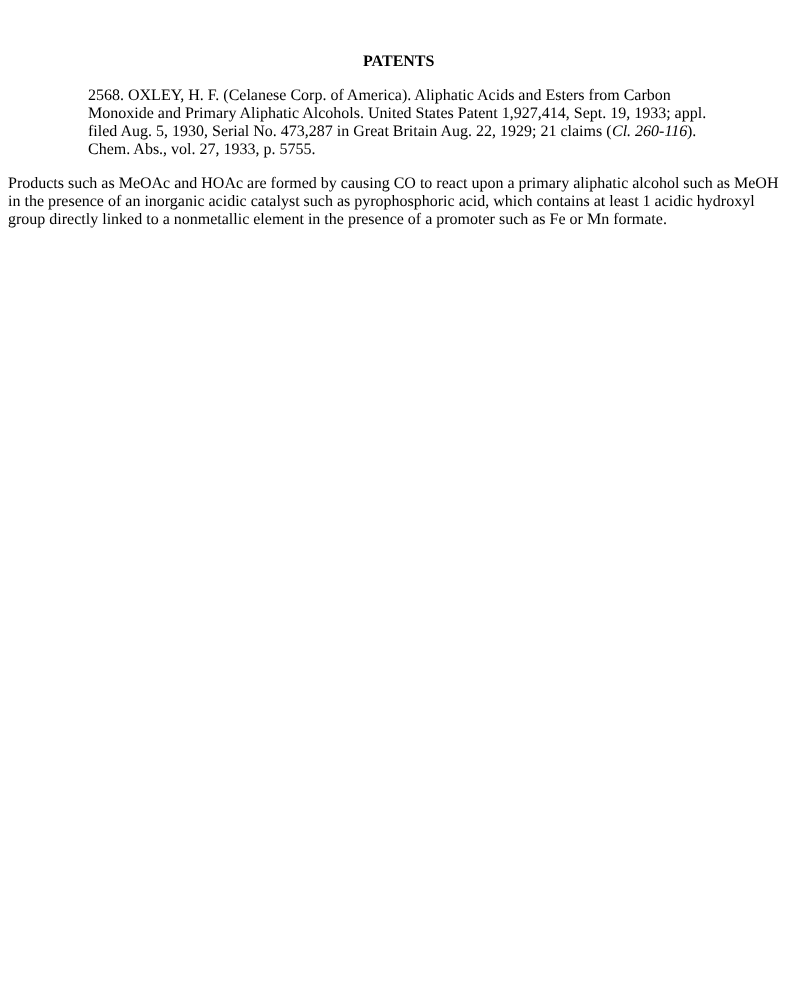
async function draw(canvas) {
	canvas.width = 797;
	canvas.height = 986;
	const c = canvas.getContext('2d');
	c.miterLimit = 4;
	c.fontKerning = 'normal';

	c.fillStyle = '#fff';
	c.fillRect(0, 0, 797, 986);
	c.font = 'bold 16px Liberation Serif';
	c.fillStyle = '#000';
	c.fillText('PATENTS', 363, 66);
	c.font = '16px Liberation Serif';
	for (const [text, x, y] of [
		['2568. OXLEY, H. F. (Celanese Corp. of America). Aliphatic Acids and Esters from Carbon', 88, 100],
		['Monoxide and Primary Aliphatic Alcohols. United States Patent 1,927,414, Sept. 19, 1933; appl.', 88, 118],
		['filed Aug. 5, 1930, Serial No. 473,287 in Great Britain Aug. 22, 1929; 21 claims (', 88, 136],
	]) {
		c.fillText(text, x, y);
	}
	c.font = 'italic 16px Liberation Serif';
	c.fillText('Cl. 260-116', 612, 136);
	c.font = '16px Liberation Serif';
	for (const [text, x, y] of [
		[').', 687, 136],
		['Chem. Abs., vol. 27, 1933, p. 5755.', 88, 154],
		['Products such as MeOAc and HOAc are formed by causing CO to react upon a primary aliphatic alcohol such as MeOH', 8, 188],
		['in the presence of an inorganic acidic catalyst such as pyrophosphoric acid, which contains at least 1 acidic hydroxyl', 8, 206],
		['group directly linked to a nonmetallic element in the presence of a promoter such as Fe or Mn formate.', 8, 224],
	]) {
		c.fillText(text, x, y);
	}
}

draw(document.querySelector('canvas'));
